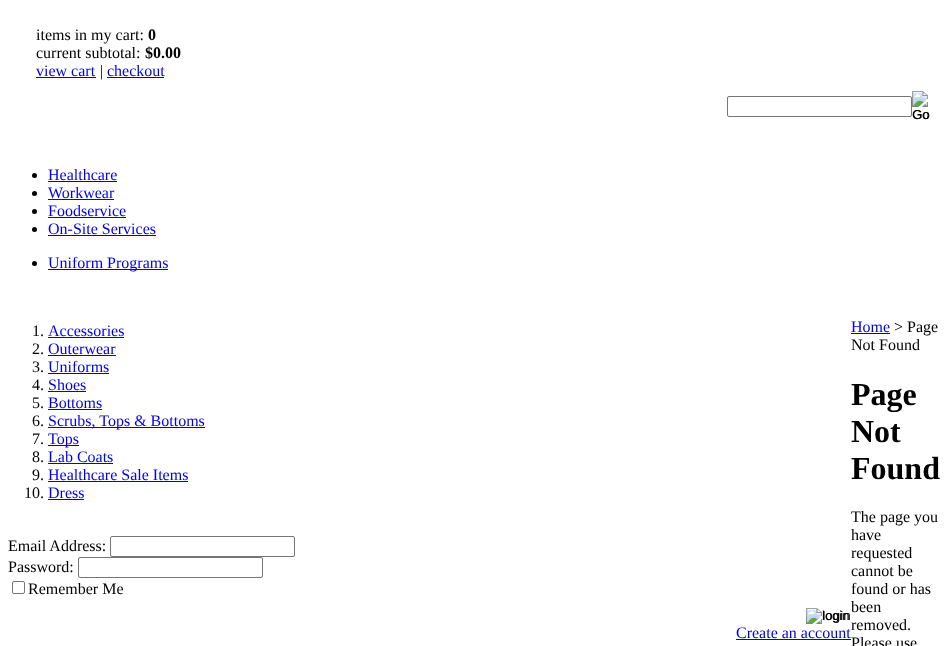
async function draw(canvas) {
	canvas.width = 948;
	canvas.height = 646;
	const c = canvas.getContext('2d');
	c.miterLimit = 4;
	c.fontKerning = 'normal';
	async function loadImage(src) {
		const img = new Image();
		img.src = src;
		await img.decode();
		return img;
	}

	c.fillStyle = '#fff';
	c.fillRect(0, 0, 948, 646);
	c.font = '16px Liberation Serif';
	c.fillStyle = '#000';
	c.fillText('items in my cart:', 36, 40);
	c.font = 'bold 16px Liberation Serif';
	c.fillText('0', 148, 40);
	c.font = '16px Liberation Serif';
	c.fillText('current subtotal:', 36, 58);
	c.font = 'bold 16px Liberation Serif';
	c.fillText('$0.00', 145, 58);
	c.font = '16px Liberation Serif';
	c.fillStyle = '#00e';
	c.fillText('view cart', 36, 76);
	c.fillRect(36, 77, 60, 1);
	c.fillStyle = '#000';
	c.fillText('|', 100, 76);
	c.fillStyle = '#00e';
	c.fillText('checkout', 107, 76);
	c.fillRect(107, 77, 57, 1);
	c.beginPath();
	c.roundRect(727.5, 96.5, 184, 20, 1.5);
	c.strokeStyle = '#767676';
	c.stroke();
	c.drawImage(await loadImage('img1.png'), 912, 91, 18, 28);
	c.font = '13px Liberation Sans';
	c.fillStyle = '#000';
	c.fillText('Go', 912, 119);
	c.beginPath();
	c.arc(34.5, 175.5, 2.5, 0, 2 * Math.PI);
	c.fill();
	c.font = '16px Liberation Serif';
	c.fillStyle = '#00e';
	c.fillText('Healthcare', 48, 180);
	c.fillRect(48, 181, 69, 1);
	c.fillStyle = '#000';
	c.beginPath();
	c.arc(34.5, 193.5, 2.5, 0, 2 * Math.PI);
	c.fill();
	c.fillStyle = '#00e';
	c.fillText('Workwear', 48, 198);
	c.fillRect(48, 199, 66, 1);
	c.fillStyle = '#000';
	c.beginPath();
	c.arc(34.5, 211.5, 2.5, 0, 2 * Math.PI);
	c.fill();
	c.fillStyle = '#00e';
	c.fillText('Foodservice', 48, 216);
	c.fillRect(48, 217, 78, 1);
	c.fillStyle = '#000';
	c.beginPath();
	c.arc(34.5, 229.5, 2.5, 0, 2 * Math.PI);
	c.fill();
	c.fillStyle = '#00e';
	c.fillText('On-Site Services', 48, 234);
	c.fillRect(48, 235, 108, 1);
	c.fillStyle = '#000';
	c.beginPath();
	c.arc(34.5, 263.5, 2.5, 0, 2 * Math.PI);
	c.fill();
	c.fillStyle = '#00e';
	c.fillRect(48, 269, 120, 1);
	c.fillText('Uniform Programs', 48, 268);
	c.fillStyle = '#000';
	c.fillText('1.', 32, 336);
	c.fillStyle = '#00e';
	c.fillText('Accessories', 48, 336);
	c.fillRect(48, 337, 76, 1);
	c.fillStyle = '#000';
	c.fillText('2.', 32, 354);
	c.fillStyle = '#00e';
	c.fillText('Outerwear', 48, 354);
	c.fillRect(48, 355, 68, 1);
	c.fillStyle = '#000';
	c.fillText('3.', 32, 372);
	c.fillStyle = '#00e';
	c.fillText('Uniforms', 48, 372);
	c.fillRect(48, 373, 61, 1);
	c.fillStyle = '#000';
	c.fillText('4.', 32, 390);
	c.fillStyle = '#00e';
	c.fillText('Shoes', 48, 390);
	c.fillRect(48, 391, 38, 1);
	c.fillStyle = '#000';
	c.fillText('5.', 32, 408);
	c.fillStyle = '#00e';
	c.fillText('Bottoms', 48, 408);
	c.fillRect(48, 409, 54, 1);
	c.fillStyle = '#000';
	c.fillText('6.', 32, 426);
	c.fillStyle = '#00e';
	c.fillRect(48, 427, 157, 1);
	c.fillText('Scrubs, Tops & Bottoms', 48, 426);
	c.fillStyle = '#000';
	c.fillText('7.', 32, 444);
	c.fillStyle = '#00e';
	c.fillRect(48, 445, 31, 1);
	c.fillText('Tops', 48, 444);
	c.fillStyle = '#000';
	c.fillText('8.', 32, 462);
	c.fillStyle = '#00e';
	c.fillText('Lab Coats', 48, 462);
	c.fillRect(48, 463, 65, 1);
	c.fillStyle = '#000';
	c.fillText('9.', 32, 480);
	c.fillStyle = '#00e';
	c.fillText('Healthcare Sale Items', 48, 480);
	c.fillRect(48, 481, 140, 1);
	c.fillStyle = '#000';
	c.fillText('10.', 24, 498);
	c.fillStyle = '#00e';
	c.fillText('Dress', 48, 498);
	c.fillRect(48, 499, 36, 1);
	c.fillStyle = '#000';
	c.fillText('Email Address:', 8, 551);
	c.beginPath();
	c.roundRect(110.5, 536.5, 184, 20, 1.5);
	c.stroke();
	c.fillText('Password:', 8, 572);
	c.beginPath();
	c.roundRect(78.5, 557.5, 184, 20, 1.5);
	c.stroke();
	c.beginPath();
	c.roundRect(12.5, 581.5, 12, 12, 1.5);
	c.stroke();
	c.fillText('Remember Me', 28, 594);
	c.drawImage(await loadImage('img2.png'), 806, 608, 44, 16);
	c.font = '13px Liberation Sans';
	c.fillText('login', 822, 620);
	c.font = '16px Liberation Serif';
	c.fillStyle = '#00e';
	c.fillText('Create an account', 736, 638);
	c.fillRect(736, 639, 115, 1);
	c.fillText('Home', 851, 332);
	c.fillRect(851, 333, 39, 1);
	c.fillStyle = '#000';
	c.fillText('> Page', 894, 332);
	c.fillText('Not Found', 851, 350);
	c.font = 'bold 32px Liberation Serif';
	for (const [text, x, y] of [
		['Page', 851, 405],
		['Not', 851, 442],
		['Found', 851, 479],
	]) {
		c.fillText(text, x, y);
	}
	c.font = '16px Liberation Serif';
	for (const [text, x, y] of [
		['The page you', 851, 522],
		['have', 851, 540],
		['requested', 851, 558],
		['cannot be', 851, 576],
		['found or has', 851, 594],
		['been', 851, 612],
		['removed.', 851, 630],
		['Please use', 851, 648],
	]) {
		c.fillText(text, x, y);
	}
}

draw(document.querySelector('canvas'));
